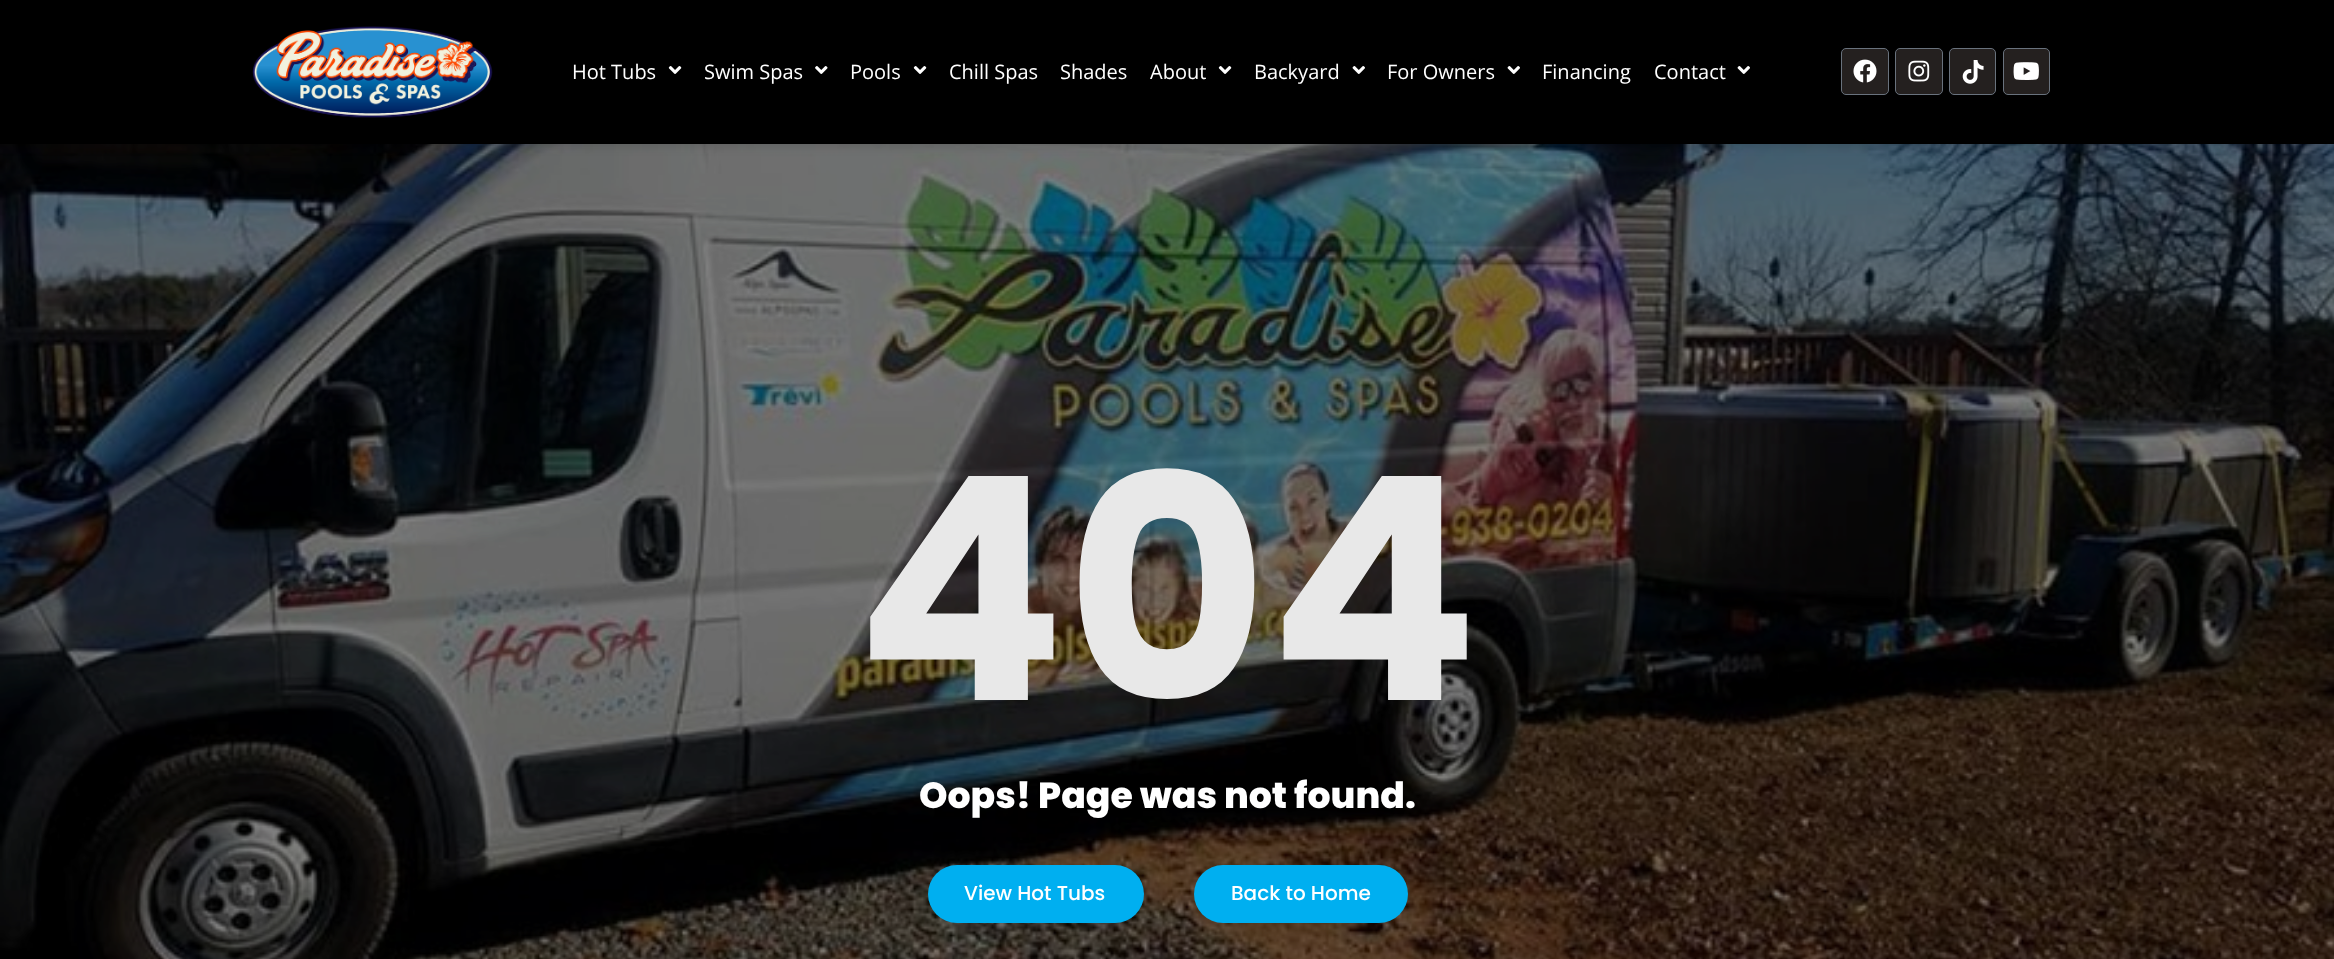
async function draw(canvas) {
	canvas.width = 2334;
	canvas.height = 959;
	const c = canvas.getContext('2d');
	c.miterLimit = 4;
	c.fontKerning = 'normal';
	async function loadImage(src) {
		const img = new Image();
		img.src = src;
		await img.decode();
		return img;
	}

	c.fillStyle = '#fff';
	c.fillRect(0, 0, 2334, 959);
	c.drawImage(await loadImage('img9.png'), 0, 144, 2334, 815);
	c.fillStyle = '#0000002e';
	c.filter = 'blur(6px)';
	c.beginPath();
	c.rect(0, 0, 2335, 144);
	c.fill();
	c.filter = 'none';
	c.fillStyle = '#000';
	c.fillRect(0, 0, 2334, 144);
	c.drawImage(await loadImage('img1.png'), 252, 26, 241, 92);
	c.font = '20px Open Sans';
	c.fillStyle = '#fff';
	c.fillText('Hot Tubs', 572, 79);
	c.drawImage(await loadImage('img2.png'), 668, 66, 14, 8);
	c.fillText('Swim Spas', 704, 79);
	c.drawImage(await loadImage('img3.png'), 815, 66, 13, 8);
	c.fillText('Pools', 850, 79);
	c.drawImage(await loadImage('img2.png'), 913, 66, 14, 8);
	for (const [text, x, y] of [
		['Chill Spas', 949, 79],
		['Shades', 1060, 79],
		['About', 1150, 79],
	]) {
		c.fillText(text, x, y);
	}
	c.drawImage(await loadImage('img2.png'), 1218, 66, 14, 8);
	c.fillText('Backyard', 1254, 79);
	c.drawImage(await loadImage('img4.png'), 1352, 66, 13, 8);
	c.fillText('For Owners', 1387, 79);
	c.drawImage(await loadImage('img4.png'), 1507, 66, 13, 8);
	c.fillText('Financing', 1542, 79);
	c.fillText('Contact', 1654, 79);
	c.drawImage(await loadImage('img4.png'), 1737, 66, 13, 8);
	c.fillStyle = '#24201f';
	c.beginPath();
	c.roundRect(1841.5, 48.5, 47, 46, 4.5);
	c.fill();
	c.strokeStyle = '#69727d';
	c.stroke();
	c.drawImage(await loadImage('img5.png'), 1853, 59, 24, 24);
	c.beginPath();
	c.roundRect(1895.5, 48.5, 47, 46, 4.5);
	c.fill();
	c.stroke();
	c.drawImage(await loadImage('img6.png'), 1908, 60, 22, 22);
	c.beginPath();
	c.roundRect(1949.5, 48.5, 46, 46, 4.5);
	c.fill();
	c.stroke();
	c.drawImage(await loadImage('img7.png'), 1962, 60, 22, 24);
	c.beginPath();
	c.roundRect(2003.5, 48.5, 46, 46, 4.5);
	c.fill();
	c.stroke();
	c.drawImage(await loadImage('img8.png'), 2013, 62, 26, 18);
	c.font = 'bold 311px Poppins';
	c.fillStyle = '#e8e8e8';
	c.fillText('404', 855, 700);
	c.font = '800 36.25px Poppins';
	c.fillStyle = '#fff';
	c.fillText('Oops! Page was not found.', 919, 808);
	c.fillStyle = '#00aff0';
	c.beginPath();
	c.roundRect(928, 865, 216, 58, 29);
	c.fill();
	c.font = '500 20px Poppins';
	c.fillStyle = '#fff';
	c.fillText('View Hot Tubs', 964, 900);
	c.fillStyle = '#00aff0';
	c.beginPath();
	c.roundRect(1194, 865, 214, 58, 29);
	c.fill();
	c.fillStyle = '#fff';
	c.fillText('Back to Home', 1231, 900);
}

draw(document.querySelector('canvas'));
